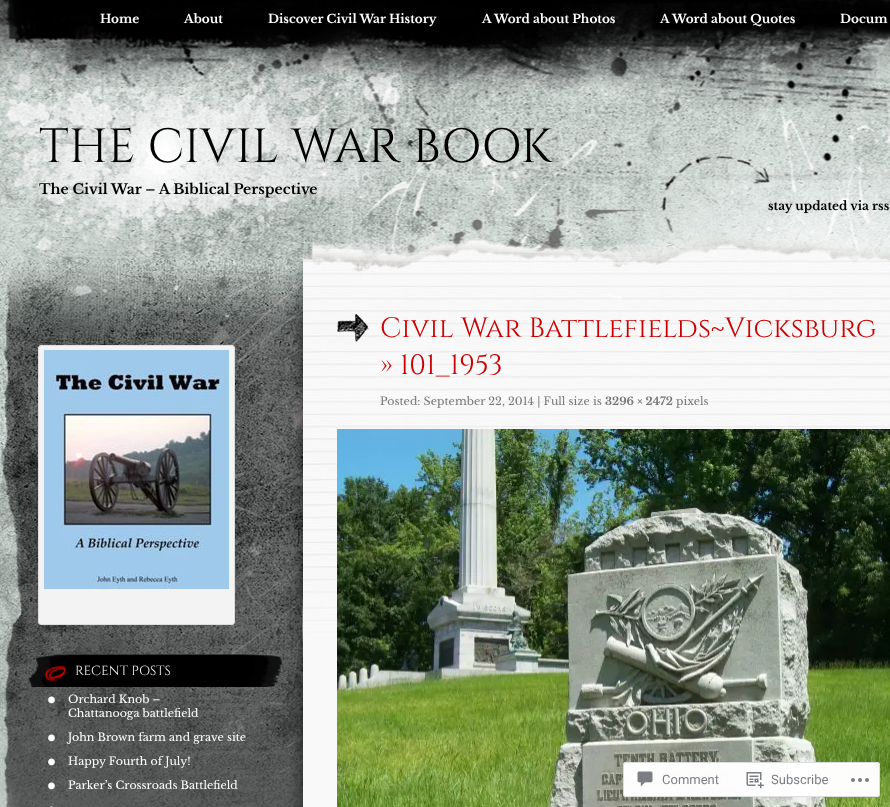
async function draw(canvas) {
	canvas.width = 890;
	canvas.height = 807;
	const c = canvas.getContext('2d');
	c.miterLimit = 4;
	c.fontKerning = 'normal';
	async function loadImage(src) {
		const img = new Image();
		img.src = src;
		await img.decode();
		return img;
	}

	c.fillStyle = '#fff';
	c.fillRect(0, 0, 890, 807);
	c.drawImage(await loadImage('img1.png'), 0, 0, 890, 260);
	c.font = 'bold 12px Libre Baskerville';
	for (const [text, x, y] of [
		['Home', 100, 23],
		['About', 184, 23],
		['Discover Civil War History', 268, 23],
		['A Word about Photos', 482, 23],
		['A Word about Quotes', 660, 23],
		['Docum', 840, 23],
	]) {
		c.fillText(text, x, y);
	}
	c.font = '48px Cinzel';
	c.fillStyle = '#000';
	c.fillText('THE CIVIL WAR BOOK', 39, 162);
	c.font = 'bold 14px Libre Baskerville';
	c.fillText('The Civil War – A Biblical Perspective', 39, 194);
	c.font = 'bold 12px Libre Baskerville';
	c.fillText('stay updated via rss', 768, 210);
	c.drawImage(await loadImage('img2.png'), 303, 633, 34, 174);
	c.drawImage(await loadImage('img3.png'), 303, 260, 587, 373);
	c.drawImage(await loadImage('img4.png'), 337, 314, 32, 28);
	c.font = '28px Cinzel';
	c.fillStyle = '#c00';
	c.fillText('Civil War Battlefields~Vicksburg', 380, 337);
	c.fillText('» 101_1953', 380, 374);
	c.font = '11px Libre Baskerville';
	c.fillStyle = '#747775';
	c.fillText('Posted: September 22, 2014 | Full size is', 380, 405);
	c.font = 'bold 11px Libre Baskerville';
	c.fillText('3296 × 2472', 605, 405);
	c.font = '11px Libre Baskerville';
	c.fillText('pixels', 676, 405);
	c.drawImage(await loadImage('img5.png'), 337, 429, 553, 378);
	c.drawImage(await loadImage('img6.png'), 0, 260, 303, 547);
	c.fillStyle = '#f3f3f3';
	c.beginPath();
	c.roundRect(38.5, 345.5, 196, 279, 2.5);
	c.fill();
	c.strokeStyle = '#ddd';
	c.stroke();
	c.drawImage(await loadImage('img7.png'), 44, 350, 185, 239);
	c.drawImage(await loadImage('img8.png'), 28, 654, 255, 33);
	c.font = '13.25px Cinzel';
	c.fillStyle = '#eef0eb';
	c.fillText('RECENT POSTS', 75, 675);
	c.drawImage(await loadImage('img9.png'), 48, 696, 7, 8);
	c.font = '11px Libre Baskerville';
	c.fillStyle = '#fff';
	c.fillText('Orchard Knob –', 68, 703);
	c.fillText('Chattanooga battlefield', 68, 717);
	c.drawImage(await loadImage('img10.png'), 48, 734, 7, 8);
	c.fillText('John Brown farm and grave site', 68, 741);
	c.drawImage(await loadImage('img11.png'), 48, 758, 7, 8);
	c.fillText('Happy Fourth of July!', 68, 765);
	c.drawImage(await loadImage('img12.png'), 48, 782, 7, 8);
	c.fillText('Parker’s Crossroads Battlefield', 68, 789);
	c.drawImage(await loadImage('img13.png'), 49, 806, 4, 1);
	c.fillStyle = '#fffffffa';
	c.beginPath();
	c.roundRect(623, 762, 257, 35, 3);
	c.fill();
	c.beginPath();
	c.roundRect(623.5, 762.5, 256, 34, 2.5);
	c.strokeStyle = '#dcdcdefa';
	c.stroke();
	c.drawImage(await loadImage('img14.png'), 637, 771, 16, 16);
	c.font = '13px Roboto';
	c.fillStyle = '#7b7f84';
	c.fillText('Comment', 662, 784);
	c.drawImage(await loadImage('img15.png'), 746, 772, 18, 17);
	c.fillText('Subscribe', 771, 784);
	c.drawImage(await loadImage('img16.png'), 851, 778, 18, 4);
}

draw(document.querySelector('canvas'));
